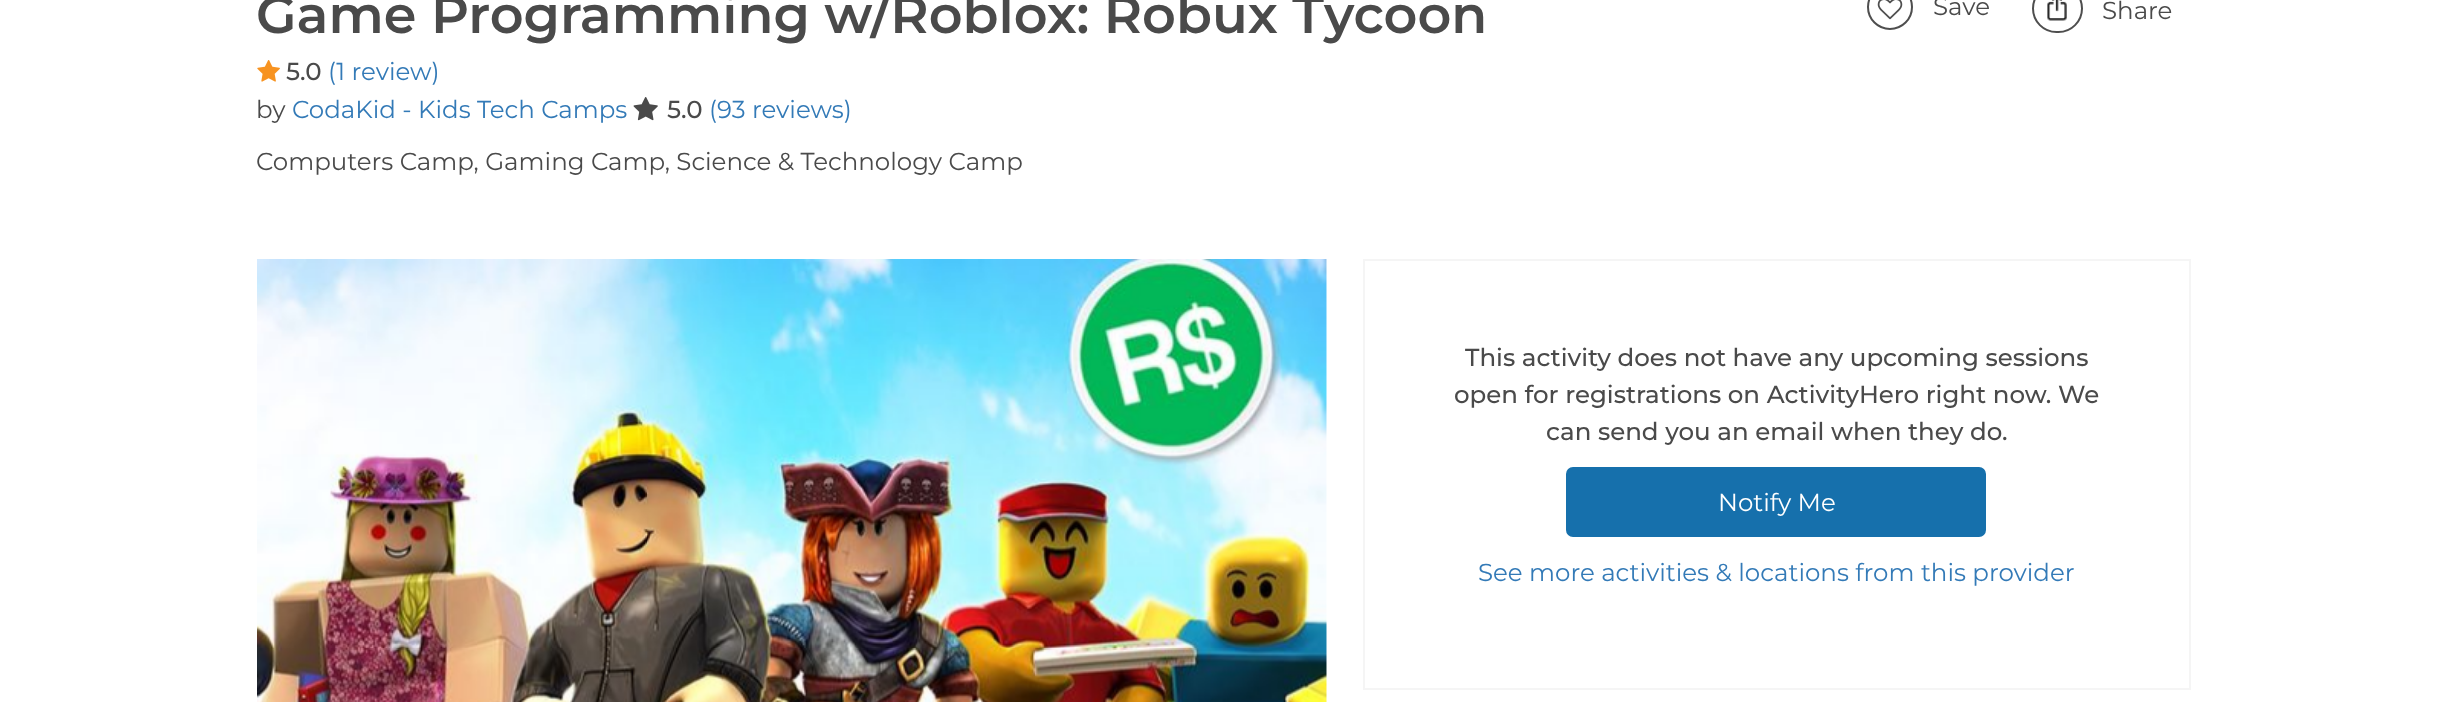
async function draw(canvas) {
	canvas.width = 2446;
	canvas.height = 702;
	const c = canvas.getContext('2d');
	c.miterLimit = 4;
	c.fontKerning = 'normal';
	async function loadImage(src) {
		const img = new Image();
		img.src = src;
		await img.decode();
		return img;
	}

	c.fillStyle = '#fff';
	c.fillRect(0, 0, 2446, 702);
	c.font = '600 52.5px Montserrat';
	c.fillStyle = '#4a4a4a';
	c.fillText('Game Programming w/Roblox: Robux Tycoon', 256, 33);
	c.beginPath();
	c.arc(1890, 7, 22, 0, 2 * Math.PI);
	c.strokeStyle = '#4e4e4e';
	c.lineWidth = 2;
	c.stroke();
	c.drawImage(await loadImage('img1.png'), 1877, 0, 26, 20);
	c.font = '24.5px Montserrat';
	c.fillText('Save', 1933, 15);
	c.beginPath();
	c.roundRect(2033, -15, 49, 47, 23.5);
	c.stroke();
	c.drawImage(await loadImage('img2.png'), 2047, 0, 20, 21);
	c.fillText('Share', 2102, 19);
	c.drawImage(await loadImage('img3.png'), 257, 60, 23, 22);
	c.font = '500 24.5px Montserrat';
	c.fillText('5.0', 286, 80);
	c.font = '24.5px Montserrat';
	c.fillStyle = '#337ab7';
	c.fillText('(1 review)', 328, 80);
	c.fillStyle = '#4a4a4a';
	c.fillText('by', 256, 118);
	c.fillStyle = '#337ab7';
	c.fillText('CodaKid - Kids Tech Camps', 292, 118);
	c.drawImage(await loadImage('img4.png'), 633, 97, 25, 24);
	c.font = '500 24.5px Montserrat';
	c.fillStyle = '#4a4a4a';
	c.fillText('5.0', 667, 118);
	c.font = '24.5px Montserrat';
	c.fillStyle = '#337ab7';
	c.fillText('(93 reviews)', 709, 118);
	c.fillStyle = '#4a4a4a';
	c.fillText('Computers Camp, Gaming Camp, Science & Technology Camp', 256, 170);
	c.drawImage(await loadImage('img5.png'), 257, 259, 1070, 443);
	c.strokeStyle = '#f5f5f5';
	c.strokeRect(1364, 260, 826, 429);
	c.font = '500 24.5px Montserrat';
	for (const [text, x, y] of [
		['This activity does not have any upcoming sessions', 1465, 366],
		['open for registrations on ActivityHero right now. We', 1454, 403],
		['can send you an email when they do.', 1546, 440],
	]) {
		c.fillText(text, x, y);
	}
	c.fillStyle = '#1670ac';
	c.beginPath();
	c.roundRect(1567, 468, 418, 68, 6);
	c.fill();
	c.strokeStyle = '#1670ac';
	c.stroke();
	c.font = '24.5px Montserrat';
	c.fillStyle = '#fff';
	c.fillText('Notify Me', 1718, 511);
	c.fillStyle = '#337ab7';
	c.fillText('See more activities & locations from this provider', 1478, 581);
}

draw(document.querySelector('canvas'));
